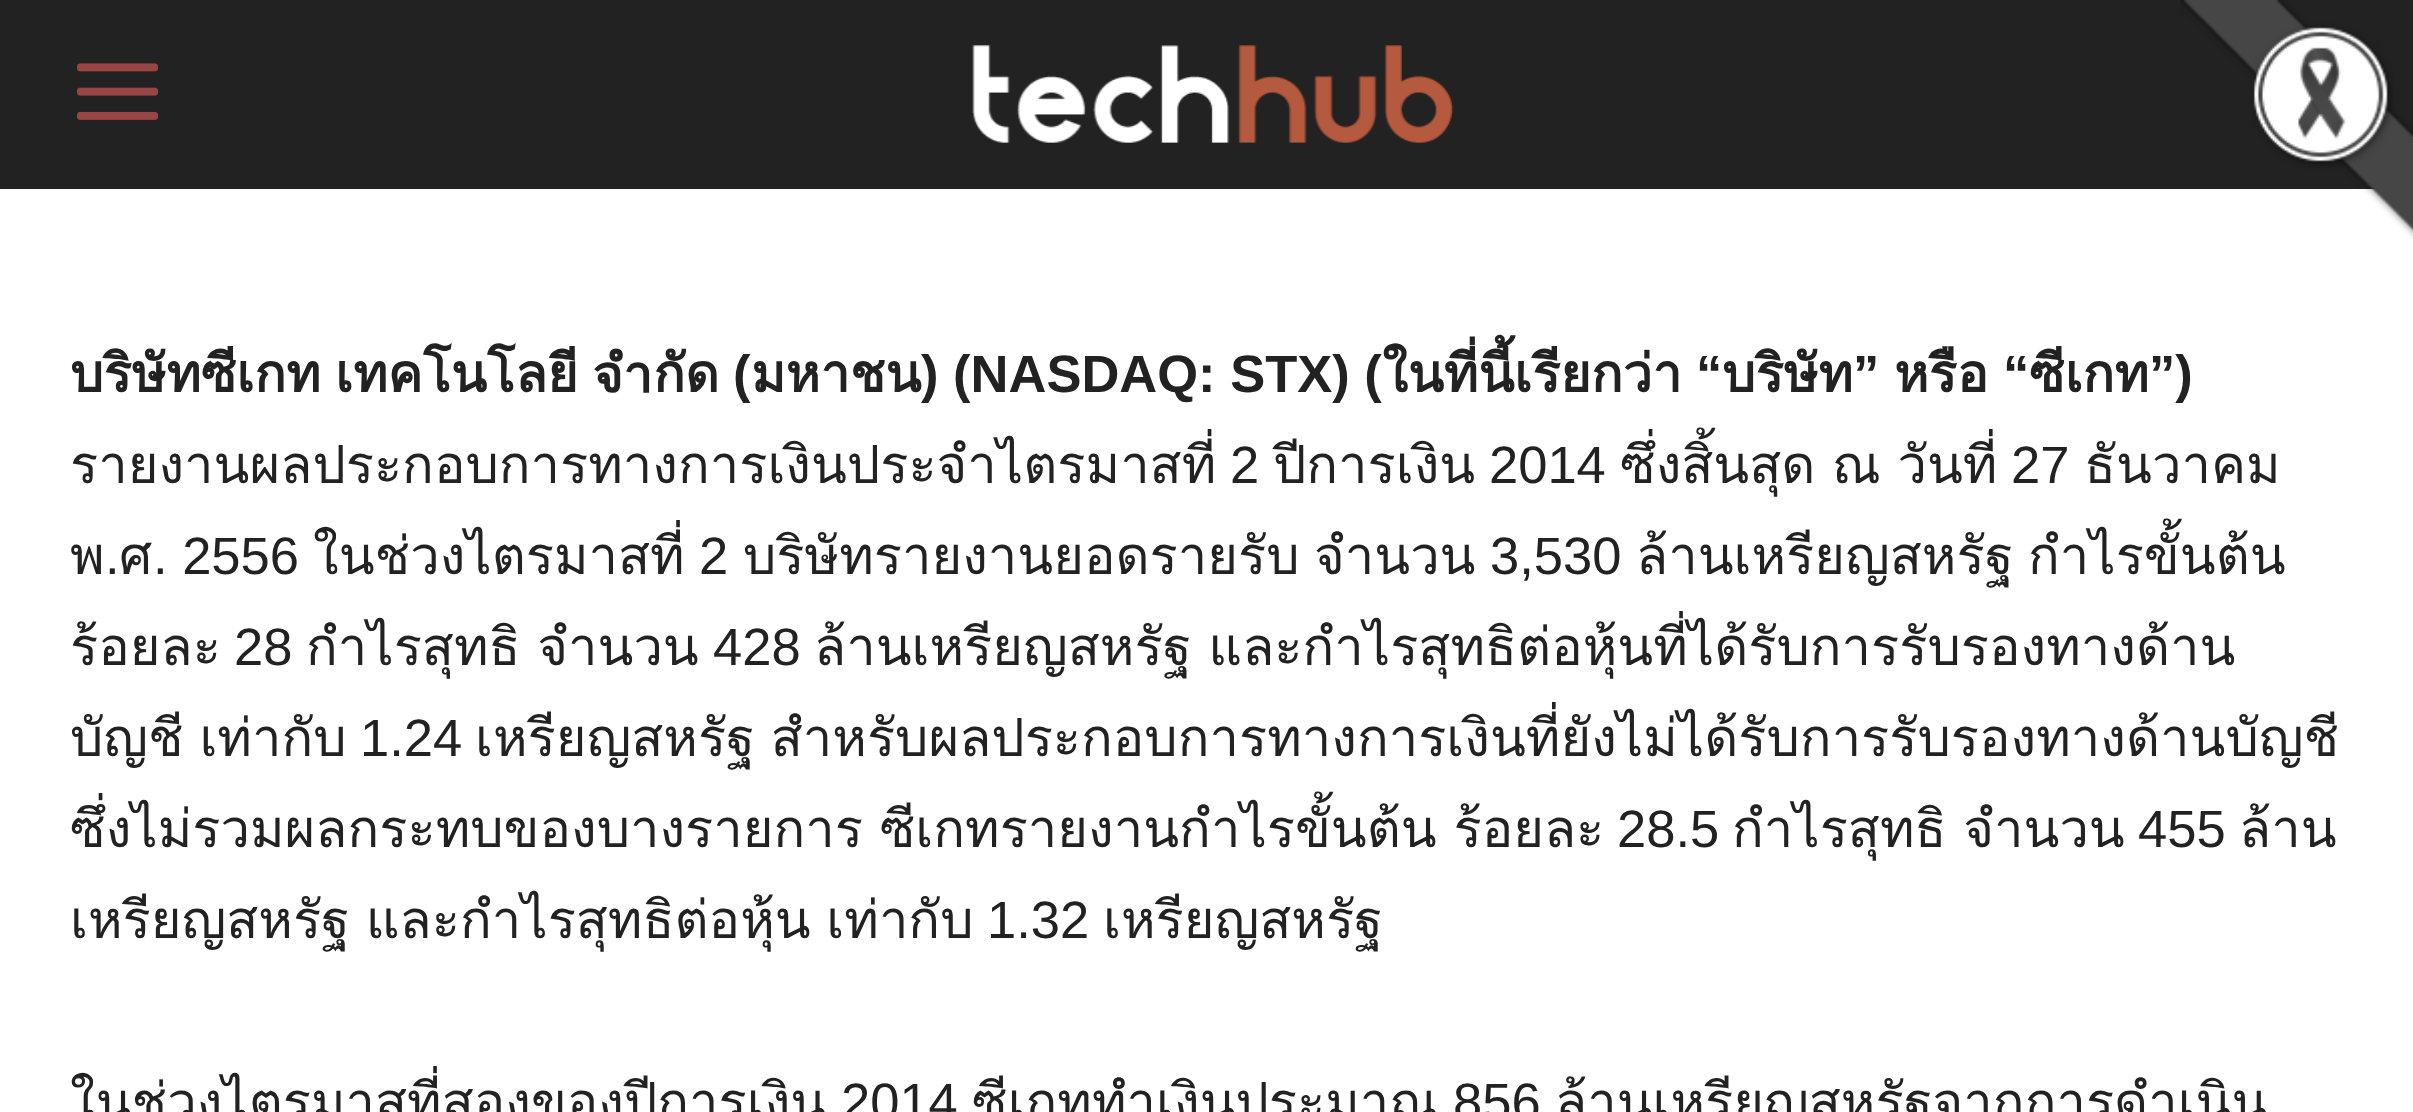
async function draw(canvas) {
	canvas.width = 2413;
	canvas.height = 1112;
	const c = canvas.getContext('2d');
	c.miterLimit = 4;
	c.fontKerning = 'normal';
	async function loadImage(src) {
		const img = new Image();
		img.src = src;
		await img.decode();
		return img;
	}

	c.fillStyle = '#fff';
	c.fillRect(0, 0, 2413, 1112);
	c.fillStyle = '#222';
	c.fillRect(0, 0, 2413, 189);
	c.drawImage(await loadImage('img1.png'), 2180, 0, 233, 239);
	c.drawImage(await loadImage('img2.png'), 77, 63, 81, 57);
	c.drawImage(await loadImage('img3.png'), 972, 45, 482, 98);
	c.font = 'bold 52.5px Loma';
	for (const [text, x, y] of [
		['บริษัทซีเกท', 70, 392],
		['เทคโนโลยี', 335, 392],
		['จำกัด', 593, 392],
	]) {
		c.fillText(text, x, y);
	}
	c.font = 'bold 52.5px Liberation Sans';
	c.fillText('(', 733, 392);
	c.fillText(') (NASDAQ: STX) (', 921, 392);
	c.font = 'bold 52.5px Loma';
	c.fillText('ในที่นี้เรียกว่า', 1382, 392);
	c.font = 'bold 52.5px Liberation Sans';
	c.fillText('“', 1696, 392);
	c.font = 'bold 52.5px Loma';
	c.fillText('บริษัท', 1722, 392);
	c.font = 'bold 52.5px Liberation Sans';
	c.fillText('”', 1853, 392);
	c.font = 'bold 52.5px Loma';
	c.fillText('หรือ', 1894, 392);
	c.font = 'bold 52.5px Liberation Sans';
	c.fillText('“', 2003, 392);
	c.font = 'bold 52.5px Loma';
	c.fillText('ซีเกท', 2029, 392);
	c.font = 'bold 52.5px Liberation Sans';
	c.fillText('”)', 2149, 392);
	c.font = 'bold 52.5px Loma';
	c.fillText('มหาชน', 751, 392);
	c.font = '52.5px Loma';
	c.fillText('รายงานผลประกอบการทางการเงินประจำไตรมาสที่', 70, 483);
	c.font = '52.5px Liberation Sans';
	c.fillText('2', 1230, 483);
	c.font = '52.5px Loma';
	c.fillText('ปีการเงิน', 1273, 483);
	c.font = '52.5px Liberation Sans';
	c.fillText('2014', 1489, 483);
	c.wordSpacing = '-1px';
	c.font = '52.5px Loma';
	c.fillText('ซึ่งสิ้นสุด ณ วันที่', 1620, 483);
	c.wordSpacing = '0px';
	c.font = '52.5px Liberation Sans';
	c.fillText('27', 2011, 483);
	c.font = '52.5px Loma';
	c.fillText('ธันวาคม', 2084, 483);
	c.fillText('พ', 70, 574);
	c.font = '52.5px Liberation Sans';
	c.fillText('.', 105, 574);
	c.font = '52.5px Loma';
	c.fillText('ศ', 119, 574);
	c.font = '52.5px Liberation Sans';
	c.fillText('. 2556', 153, 574);
	c.font = '52.5px Loma';
	c.fillText('ในช่วงไตรมาสที่', 313, 574);
	c.font = '52.5px Liberation Sans';
	c.fillText('2', 699, 574);
	c.font = '52.5px Loma';
	c.fillText('บริษัทรายงานยอดรายรับ', 743, 574);
	c.fillText('จำนวน', 1314, 574);
	c.font = '52.5px Liberation Sans';
	c.fillText('3,530', 1490, 574);
	c.font = '52.5px Loma';
	for (const [text, x, y] of [
		['ล้านเหรียญสหรัฐ', 1636, 574],
		['กำไรขั้นต้น', 2028, 574],
		['ร้อยละ', 70, 665],
	]) {
		c.fillText(text, x, y);
	}
	c.font = '52.5px Liberation Sans';
	c.fillText('28', 234, 665);
	c.wordSpacing = '-1px';
	c.font = '52.5px Loma';
	c.fillText('กำไรสุทธิ จำนวน', 306, 665);
	c.wordSpacing = '0px';
	c.font = '52.5px Liberation Sans';
	c.fillText('428', 713, 665);
	c.wordSpacing = '-1px';
	c.font = '52.5px Loma';
	c.fillText('ล้านเหรียญสหรัฐ และกำไรสุทธิต่อหุ้นที่ได้รับการรับรองทางด้าน', 814, 665);
	c.wordSpacing = '-2px';
	c.fillText('บัญชี เท่ากับ', 70, 756);
	c.wordSpacing = '0px';
	c.font = '52.5px Liberation Sans';
	c.fillText('1.24', 360, 756);
	c.wordSpacing = '-2px';
	c.font = '52.5px Loma';
	c.fillText('เหรียญสหรัฐ สำหรับผลประกอบการทางการเงินที่ยังไม่ได้รับการรับรองทางด้านบัญชี', 475, 756);
	c.wordSpacing = '-1px';
	c.fillText('ซึ่งไม่รวมผลกระทบของบางรายการ ซีเกทรายงานกำไรขั้นต้น ร้อยละ', 70, 847);
	c.wordSpacing = '0px';
	c.font = '52.5px Liberation Sans';
	c.fillText('28.5', 1617, 847);
	c.wordSpacing = '-1px';
	c.font = '52.5px Loma';
	c.fillText('กำไรสุทธิ จำนวน', 1732, 847);
	c.wordSpacing = '0px';
	c.font = '52.5px Liberation Sans';
	c.fillText('455', 2138, 847);
	c.font = '52.5px Loma';
	c.fillText('ล้าน', 2239, 847);
	c.wordSpacing = '-2px';
	c.fillText('เหรียญสหรัฐ และกำไรสุทธิต่อหุ้น เท่ากับ', 70, 938);
	c.wordSpacing = '0px';
	c.font = '52.5px Liberation Sans';
	c.fillText('1.32', 987, 938);
	c.font = '52.5px Loma';
	c.fillText('เหรียญสหรัฐ', 1103, 938);
	c.fillText('ในช่วงไตรมาสที่สองของปีการเงิน', 70, 1120);
	c.font = '52.5px Liberation Sans';
	c.fillText('2014', 841, 1120);
	c.font = '52.5px Loma';
	c.fillText('ซีเกททำเงินประมาณ', 972, 1120);
	c.font = '52.5px Liberation Sans';
	c.fillText('856', 1453, 1120);
	c.font = '52.5px Loma';
	c.fillText('ล้านเหรียญสหรัฐจากการดำเนิน', 1555, 1120);
}

draw(document.querySelector('canvas'));
